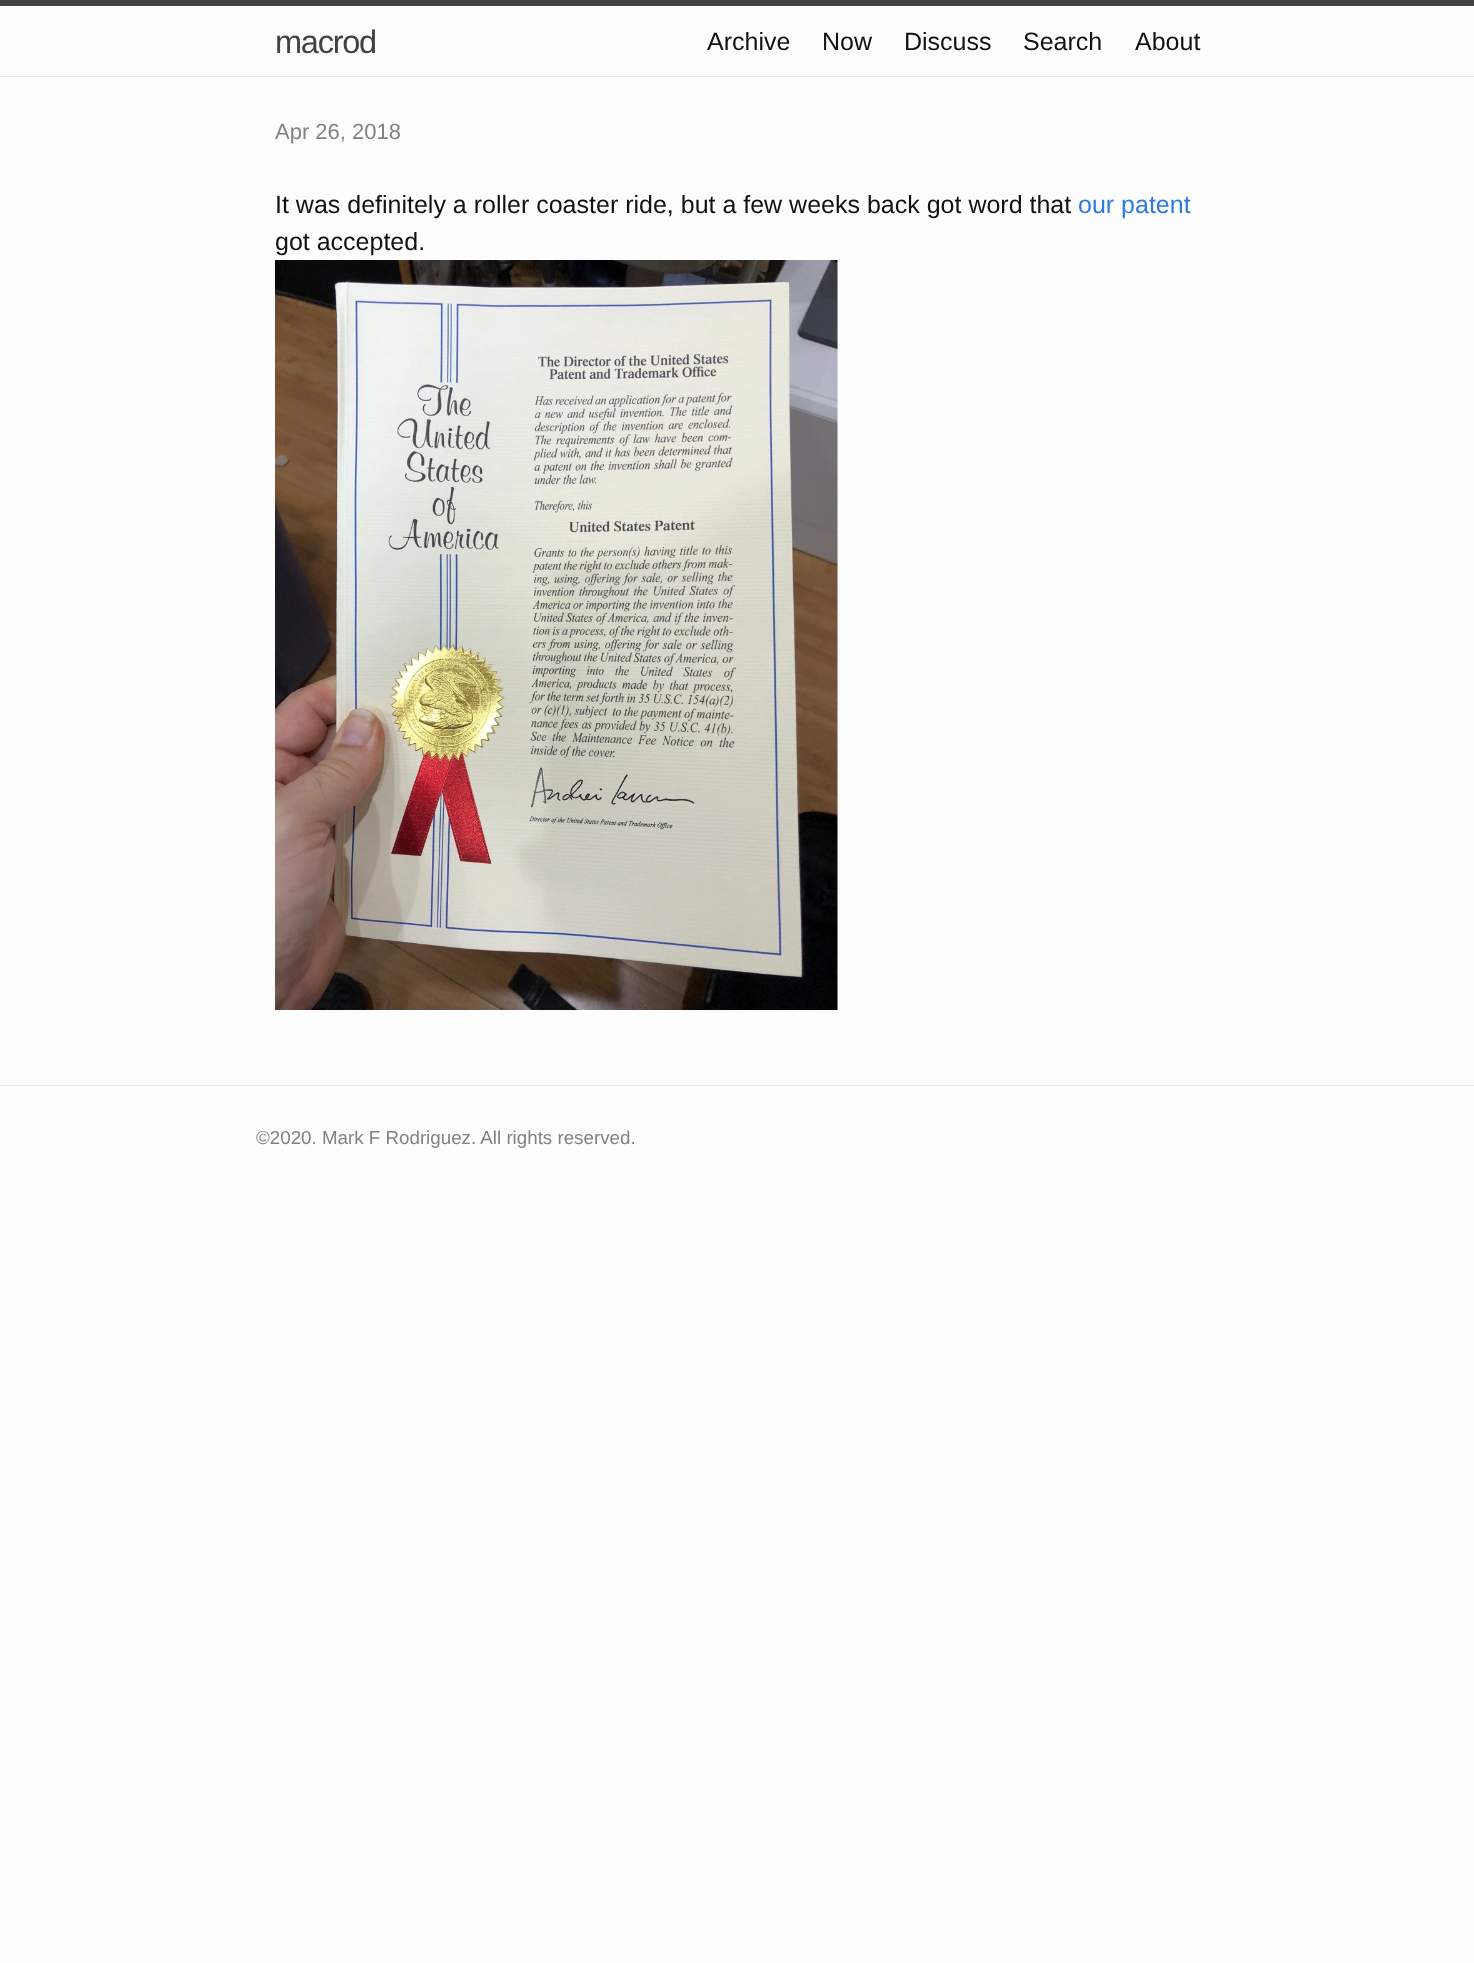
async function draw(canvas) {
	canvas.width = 1474;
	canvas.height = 1963;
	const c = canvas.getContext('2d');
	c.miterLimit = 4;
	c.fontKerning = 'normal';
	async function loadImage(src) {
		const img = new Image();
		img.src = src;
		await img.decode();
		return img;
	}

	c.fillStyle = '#fdfdfd';
	c.fillRect(0, 0, 1474, 1963);
	c.fillStyle = '#424242';
	c.fillRect(0, 0, 1474, 6);
	c.fillStyle = '#e8e8e8';
	c.fillRect(0, 76, 1474, 1);
	c.letterSpacing = '-1.25px';
	c.font = '32.5px Liberation Sans';
	c.fillStyle = '#424242';
	c.fillText('macrod', 275, 53);
	c.letterSpacing = '0px';
	c.font = '25px Liberation Sans';
	c.fillStyle = '#111';
	for (const [text, x, y] of [
		['Archive', 707, 50],
		['Now', 822, 50],
		['Discuss', 904, 50],
		['Search', 1023, 50],
		['About', 1135, 50],
	]) {
		c.fillText(text, x, y);
	}
	c.font = '22px Liberation Sans';
	c.fillStyle = '#828282';
	c.fillText('Apr 26, 2018', 275, 139);
	c.font = '25px Liberation Sans';
	c.fillStyle = '#111';
	c.fillText('It was definitely a roller coaster ride, but a few weeks back got word that', 275, 213);
	c.fillStyle = '#2a7ae2';
	c.fillText('our patent', 1078, 213);
	c.fillStyle = '#111';
	c.fillText('got accepted.', 275, 250);
	c.drawImage(await loadImage('img1.png'), 275, 260, 563, 750);
	c.fillStyle = '#e8e8e8';
	c.fillRect(0, 1085, 1474, 1);
	c.font = '18.75px Liberation Sans';
	c.fillStyle = '#828282';
	c.fillText('©2020. Mark F Rodriguez. All rights reserved.', 256, 1144);
}

draw(document.querySelector('canvas'));
